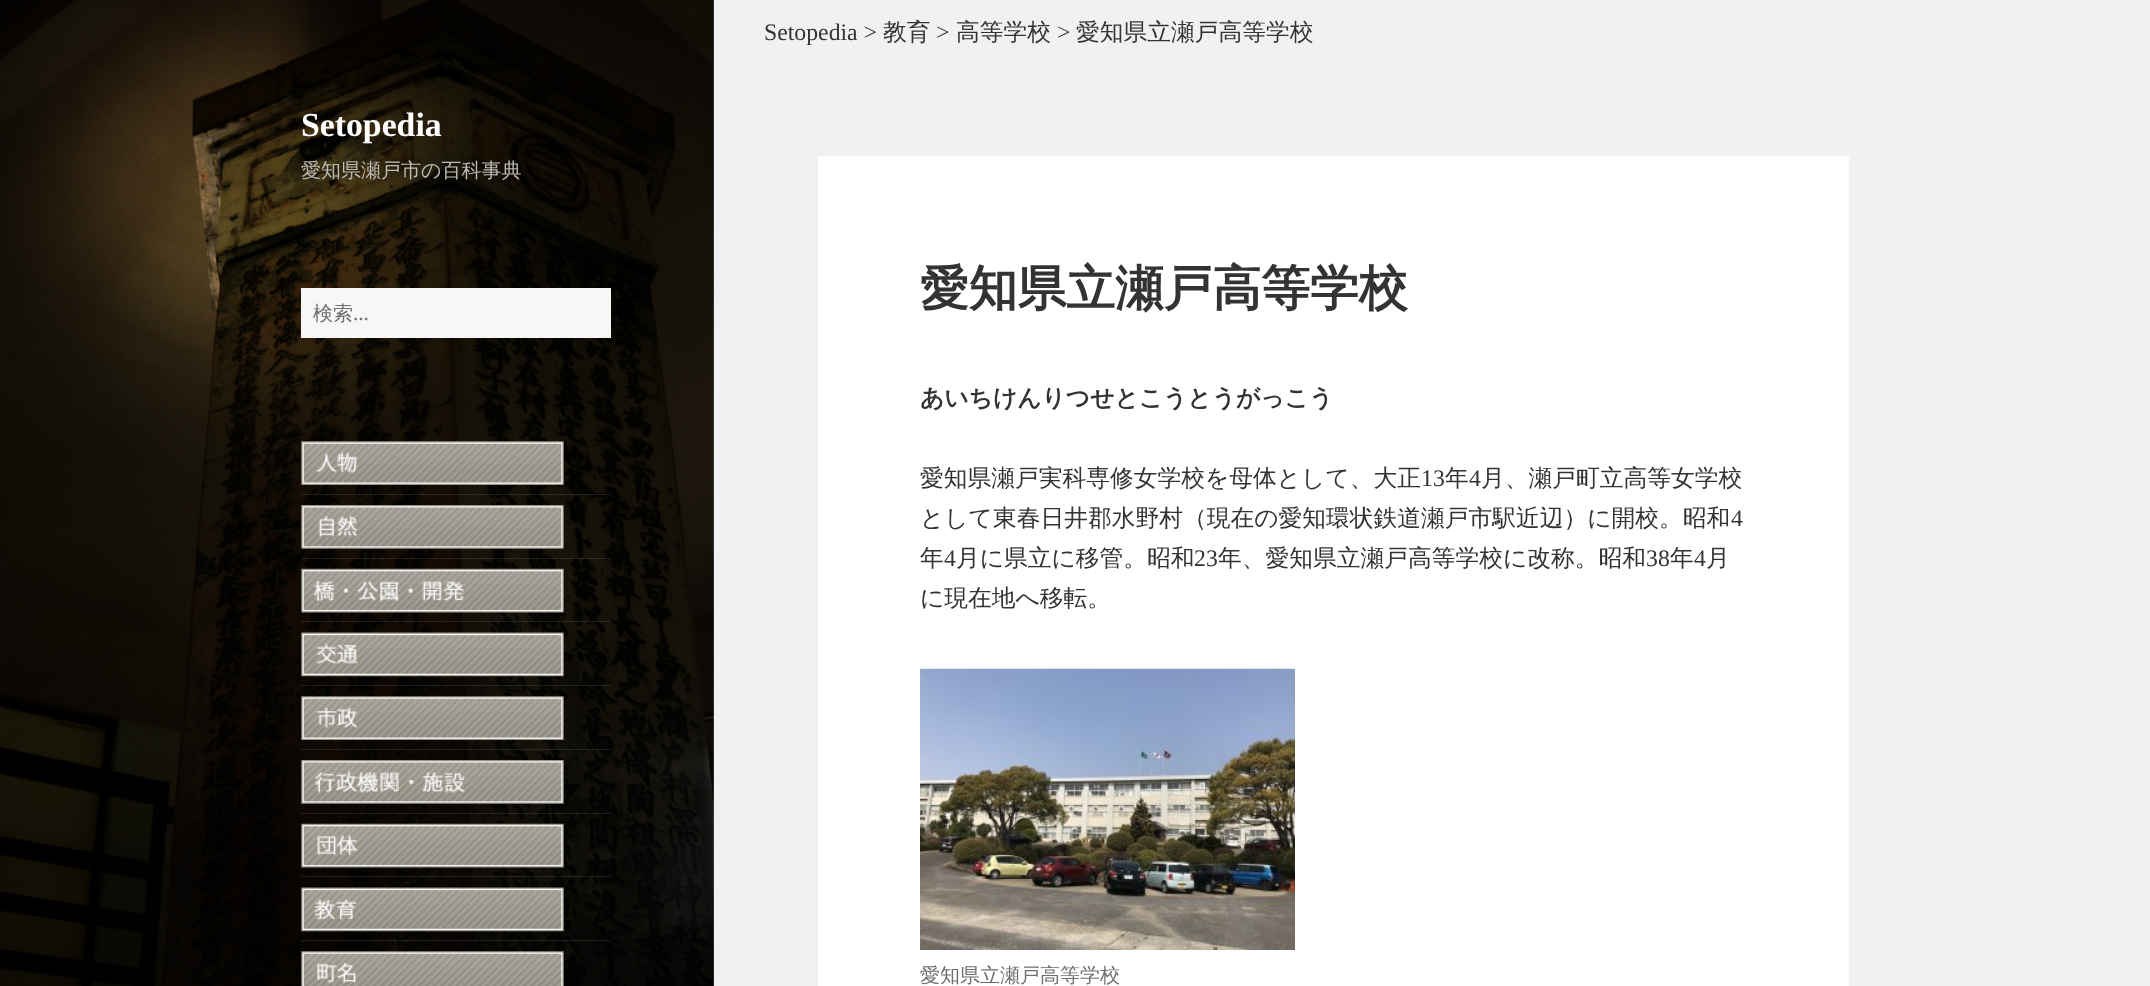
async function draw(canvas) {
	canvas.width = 2150;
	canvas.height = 986;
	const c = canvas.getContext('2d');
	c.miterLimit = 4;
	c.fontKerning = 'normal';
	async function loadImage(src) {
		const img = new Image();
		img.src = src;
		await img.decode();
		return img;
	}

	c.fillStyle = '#f1f1f1';
	c.fillRect(0, 0, 2150, 986);
	c.fillStyle = '#00000026';
	c.filter = 'blur(0.5px)';
	c.beginPath();
	c.rect(0, 0, 714, 986);
	c.fill();
	c.filter = 'none';
	c.drawImage(await loadImage('img1.png'), 0, 0, 714, 986);
	c.font = 'bold 33.75px Liberation Serif';
	c.fillStyle = '#fff';
	c.fillText('Setopedia', 301, 136);
	c.font = '500 20px WenQuanYi Zen Hei';
	c.fillStyle = '#bdbbb6';
	c.fillText('愛知県瀬戸市の百科事典', 301, 177);
	c.fillStyle = '#f7f7f7';
	c.fillRect(301, 288, 310, 50);
	c.fillStyle = '#6e6e6e';
	c.fillText('検索', 313, 320);
	c.font = '20px Noto Sans';
	c.fillText('…', 353, 320);
	c.drawImage(await loadImage('img2.png'), 301, 441, 263, 44);
	c.fillStyle = '#ffffff1a';
	c.fillRect(301, 494, 310, 1);
	c.drawImage(await loadImage('img3.png'), 301, 505, 263, 44);
	c.fillRect(301, 558, 310, 1);
	c.drawImage(await loadImage('img4.png'), 301, 568, 263, 45);
	c.fillRect(301, 621, 310, 1);
	c.drawImage(await loadImage('img5.png'), 301, 632, 263, 45);
	c.fillRect(301, 685, 310, 1);
	c.drawImage(await loadImage('img6.png'), 301, 696, 263, 44);
	c.fillRect(301, 749, 310, 1);
	c.drawImage(await loadImage('img7.png'), 301, 760, 263, 44);
	c.fillRect(301, 813, 310, 1);
	c.drawImage(await loadImage('img8.png'), 301, 823, 263, 45);
	c.fillRect(301, 876, 310, 1);
	c.drawImage(await loadImage('img9.png'), 301, 887, 263, 45);
	c.fillRect(301, 940, 310, 1);
	c.drawImage(await loadImage('img10.png'), 301, 951, 263, 35);
	c.font = '23.75px Liberation Serif';
	c.fillStyle = '#333';
	c.fillText('Setopedia >', 764, 40);
	c.font = '500 23.75px WenQuanYi Zen Hei';
	c.fillText('教育', 883, 40);
	c.font = '23.75px Liberation Serif';
	c.fillText('>', 936, 40);
	c.font = '500 23.75px WenQuanYi Zen Hei';
	c.fillText('高等学校', 956, 40);
	c.font = '23.75px Liberation Serif';
	c.fillText('>', 1057, 40);
	c.font = '500 23.75px WenQuanYi Zen Hei';
	c.fillText('愛知県立瀬戸高等学校', 1076, 40);
	c.fillStyle = '#fff';
	c.fillRect(818, 156, 1031, 830);
	c.font = 'bold 48.75px WenQuanYi Zen Hei';
	c.fillStyle = '#333';
	c.fillText('愛知県立瀬戸高等学校', 920, 305);
	c.font = 'bold 23.75px WenQuanYi Zen Hei';
	c.fillText('あいちけんりつせとこうとうがっこう', 920, 406);
	c.font = '500 23.75px WenQuanYi Zen Hei';
	c.fillText('愛知県瀬戸実科専修女学校を母体として、大正', 920, 486);
	c.font = '23.75px Liberation Serif';
	c.fillText('13', 1421, 486);
	c.font = '500 23.75px WenQuanYi Zen Hei';
	c.fillText('年', 1445, 486);
	c.font = '23.75px Liberation Serif';
	c.fillText('4', 1469, 486);
	c.font = '500 23.75px WenQuanYi Zen Hei';
	c.fillText('月、瀬戸町立高等女学校', 1481, 486);
	c.fillText('として東春日井郡水野村（現在の愛知環状鉄道瀬戸市駅近辺）に開校。昭和', 920, 526);
	c.font = '23.75px Liberation Serif';
	c.fillText('4', 1731, 526);
	c.font = '500 23.75px WenQuanYi Zen Hei';
	c.fillText('年', 920, 566);
	c.font = '23.75px Liberation Serif';
	c.fillText('4', 944, 566);
	c.font = '500 23.75px WenQuanYi Zen Hei';
	c.fillText('月に県立に移管。昭和', 956, 566);
	c.font = '23.75px Liberation Serif';
	c.fillText('23', 1194, 566);
	c.font = '500 23.75px WenQuanYi Zen Hei';
	c.fillText('年、愛知県立瀬戸高等学校に改称。昭和', 1218, 566);
	c.font = '23.75px Liberation Serif';
	c.fillText('38', 1646, 566);
	c.font = '500 23.75px WenQuanYi Zen Hei';
	c.fillText('年', 1670, 566);
	c.font = '23.75px Liberation Serif';
	c.fillText('4', 1694, 566);
	c.font = '500 23.75px WenQuanYi Zen Hei';
	c.fillText('月', 1706, 566);
	c.fillText('に現在地へ移転。', 920, 606);
	c.drawImage(await loadImage('img11.png'), 920, 668, 375, 282);
	c.font = '500 20px WenQuanYi Zen Hei';
	c.fillStyle = '#6e6e6e';
	c.fillText('愛知県立瀬戸高等学校', 920, 982);
}

draw(document.querySelector('canvas'));
